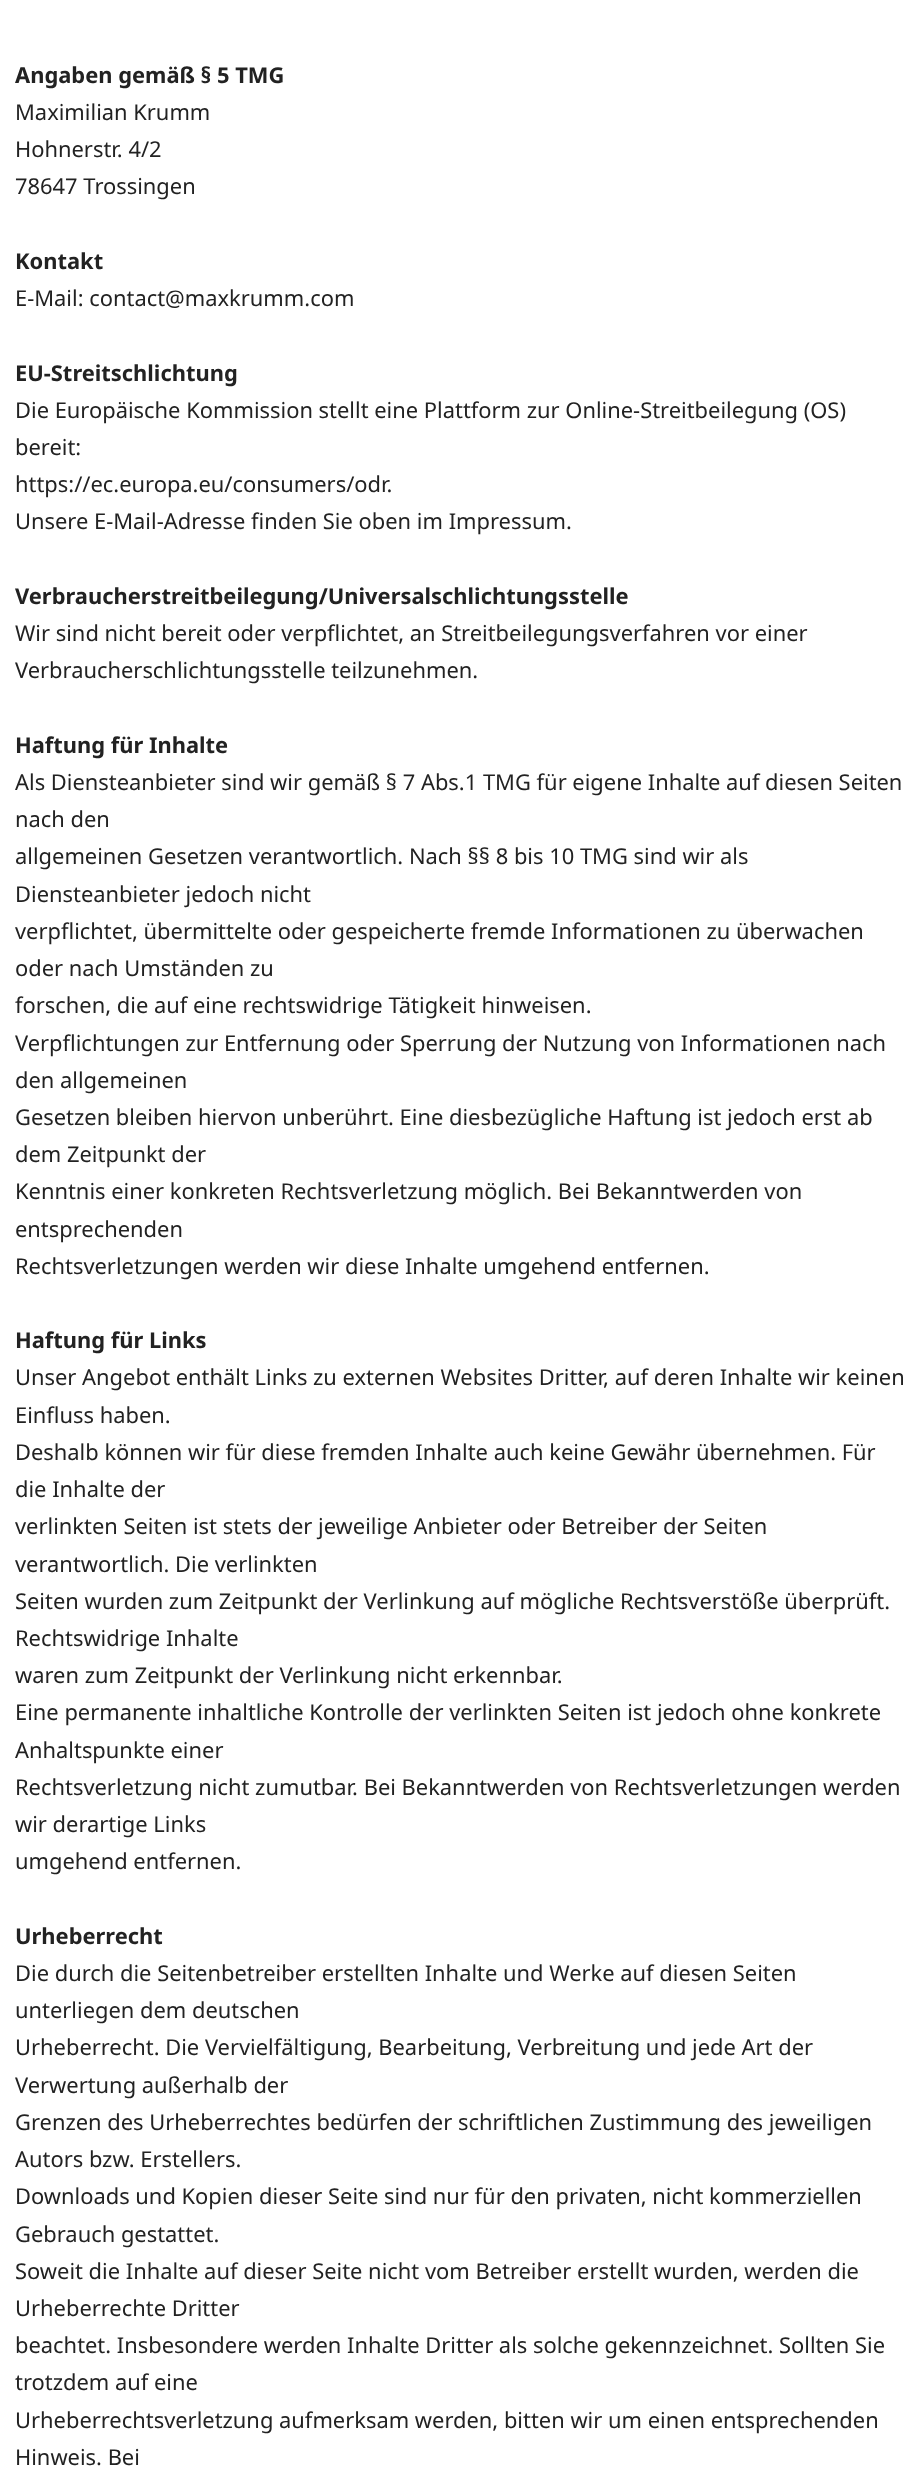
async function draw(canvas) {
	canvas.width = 924;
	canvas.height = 2478;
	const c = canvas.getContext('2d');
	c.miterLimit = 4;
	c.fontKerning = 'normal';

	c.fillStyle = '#fff';
	c.fillRect(0, 0, 924, 2478);
	c.font = 'bold 21.9px Noto Sans';
	c.fillStyle = '#222';
	c.fillText('Angaben gemäß § 5 TMG', 15, 83);
	c.font = '21.9px Noto Sans';
	for (const [text, x, y] of [
		['Maximilian Krumm', 15, 120],
		['Hohnerstr. 4/2', 15, 157],
		['78647 Trossingen', 15, 194],
	]) {
		c.fillText(text, x, y);
	}
	c.font = 'bold 21.9px Noto Sans';
	c.fillText('Kontakt', 15, 269);
	c.font = '21.9px Noto Sans';
	c.fillText('E-Mail: contact@maxkrumm.com', 15, 306);
	c.font = 'bold 21.9px Noto Sans';
	c.fillText('EU-Streitschlichtung', 15, 381);
	c.font = '21.9px Noto Sans';
	for (const [text, x, y] of [
		['Die Europäische Kommission stellt eine Plattform zur Online-Streitbeilegung (OS)', 15, 418],
		['bereit:', 15, 455],
		['https://ec.europa.eu/consumers/odr.', 15, 492],
		['Unsere E-Mail-Adresse finden Sie oben im Impressum.', 15, 529],
	]) {
		c.fillText(text, x, y);
	}
	c.font = 'bold 21.9px Noto Sans';
	c.fillText('Verbraucherstreitbeilegung/Universalschlichtungsstelle', 15, 604);
	c.font = '21.9px Noto Sans';
	c.fillText('Wir sind nicht bereit oder verpflichtet, an Streitbeilegungsverfahren vor einer', 15, 641);
	c.fillText('Verbraucherschlichtungsstelle teilzunehmen.', 15, 678);
	c.font = 'bold 21.9px Noto Sans';
	c.fillText('Haftung für Inhalte', 15, 753);
	c.font = '21.9px Noto Sans';
	for (const [text, x, y] of [
		['Als Diensteanbieter sind wir gemäß § 7 Abs.1 TMG für eigene Inhalte auf diesen Seiten', 15, 790],
		['nach den', 15, 827],
		['allgemeinen Gesetzen verantwortlich. Nach §§ 8 bis 10 TMG sind wir als', 15, 864],
		['Diensteanbieter jedoch nicht', 15, 902],
		['verpflichtet, übermittelte oder gespeicherte fremde Informationen zu überwachen', 15, 939],
		['oder nach Umständen zu', 15, 976],
		['forschen, die auf eine rechtswidrige Tätigkeit hinweisen.', 15, 1013],
		['Verpflichtungen zur Entfernung oder Sperrung der Nutzung von Informationen nach', 15, 1051],
		['den allgemeinen', 15, 1088],
		['Gesetzen bleiben hiervon unberührt. Eine diesbezügliche Haftung ist jedoch erst ab', 15, 1125],
		['dem Zeitpunkt der', 15, 1162],
		['Kenntnis einer konkreten Rechtsverletzung möglich. Bei Bekanntwerden von', 15, 1199],
		['entsprechenden', 15, 1237],
		['Rechtsverletzungen werden wir diese Inhalte umgehend entfernen.', 15, 1274],
	]) {
		c.fillText(text, x, y);
	}
	c.font = 'bold 21.9px Noto Sans';
	c.fillText('Haftung für Links', 15, 1348);
	c.font = '21.9px Noto Sans';
	for (const [text, x, y] of [
		['Unser Angebot enthält Links zu externen Websites Dritter, auf deren Inhalte wir keinen', 15, 1385],
		['Einfluss haben.', 15, 1423],
		['Deshalb können wir für diese fremden Inhalte auch keine Gewähr übernehmen. Für', 15, 1460],
		['die Inhalte der', 15, 1497],
		['verlinkten Seiten ist stets der jeweilige Anbieter oder Betreiber der Seiten', 15, 1534],
		['verantwortlich. Die verlinkten', 15, 1572],
		['Seiten wurden zum Zeitpunkt der Verlinkung auf mögliche Rechtsverstöße überprüft.', 15, 1609],
		['Rechtswidrige Inhalte', 15, 1646],
		['waren zum Zeitpunkt der Verlinkung nicht erkennbar.', 15, 1683],
		['Eine permanente inhaltliche Kontrolle der verlinkten Seiten ist jedoch ohne konkrete', 15, 1720],
		['Anhaltspunkte einer', 15, 1758],
		['Rechtsverletzung nicht zumutbar. Bei Bekanntwerden von Rechtsverletzungen werden', 15, 1795],
		['wir derartige Links', 15, 1832],
		['umgehend entfernen.', 15, 1869],
	]) {
		c.fillText(text, x, y);
	}
	c.font = 'bold 21.9px Noto Sans';
	c.fillText('Urheberrecht', 15, 1944);
	c.font = '21.9px Noto Sans';
	for (const [text, x, y] of [
		['Die durch die Seitenbetreiber erstellten Inhalte und Werke auf diesen Seiten', 15, 1981],
		['unterliegen dem deutschen', 15, 2018],
		['Urheberrecht. Die Vervielfältigung, Bearbeitung, Verbreitung und jede Art der', 15, 2055],
		['Verwertung außerhalb der', 15, 2093],
		['Grenzen des Urheberrechtes bedürfen der schriftlichen Zustimmung des jeweiligen', 15, 2130],
		['Autors bzw. Erstellers.', 15, 2167],
		['Downloads und Kopien dieser Seite sind nur für den privaten, nicht kommerziellen', 15, 2204],
		['Gebrauch gestattet.', 15, 2242],
		['Soweit die Inhalte auf dieser Seite nicht vom Betreiber erstellt wurden, werden die', 15, 2279],
		['Urheberrechte Dritter', 15, 2316],
		['beachtet. Insbesondere werden Inhalte Dritter als solche gekennzeichnet. Sollten Sie', 15, 2353],
		['trotzdem auf eine', 15, 2390],
		['Urheberrechtsverletzung aufmerksam werden, bitten wir um einen entsprechenden', 15, 2428],
		['Hinweis. Bei', 15, 2465],
	]) {
		c.fillText(text, x, y);
	}
}

draw(document.querySelector('canvas'));
